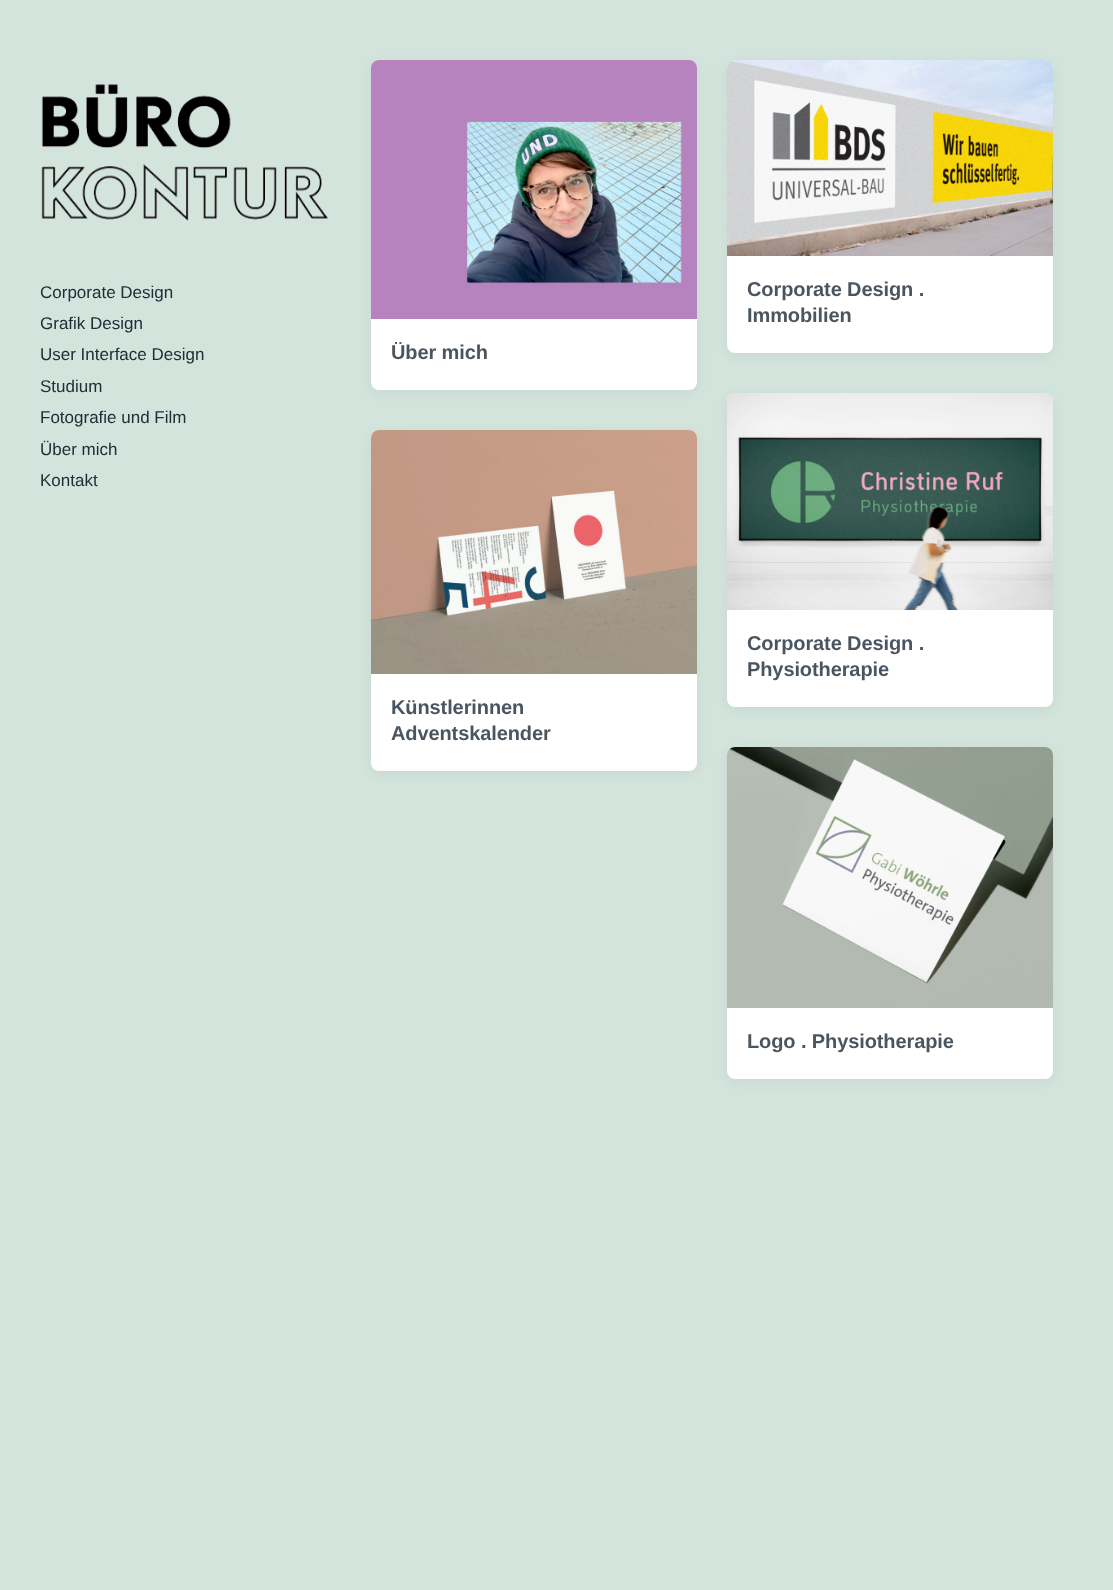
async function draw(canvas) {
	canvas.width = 1113;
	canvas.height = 1590;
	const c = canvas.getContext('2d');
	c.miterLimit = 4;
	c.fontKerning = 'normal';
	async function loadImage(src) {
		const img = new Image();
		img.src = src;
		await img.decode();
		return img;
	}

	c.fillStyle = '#d3e4dd';
	c.fillRect(0, 0, 1113, 1590);
	c.drawImage(await loadImage('img1.png'), 41, 84, 287, 138);
	c.font = '17px Liberation Sans';
	c.fillStyle = '#232d37';
	for (const [text, x, y] of [
		['Corporate Design', 40, 298],
		['Grafik Design', 40, 329],
		['User Interface Design', 40, 360],
		['Studium', 40, 392],
		['Fotografie und Film', 40, 423],
		['Über mich', 40, 455],
		['Kontakt', 40, 486],
	]) {
		c.fillText(text, x, y);
	}
	c.fillStyle = '#050a0f0d';
	c.filter = 'blur(6px)';
	c.beginPath();
	c.roundRect(727, 63, 326, 293, 8);
	c.fill();
	c.filter = 'none';
	c.fillStyle = '#fff';
	c.beginPath();
	c.roundRect(727, 60, 326, 293, 8);
	c.fill();
	c.drawImage(await loadImage('img2.png'), 727, 60, 326, 196);
	c.letterSpacing = '-0.1px';
	c.font = 'bold 20px Liberation Sans';
	c.fillStyle = '#4b555f';
	c.fillText('Corporate Design .', 747, 296);
	c.fillText('Immobilien', 747, 322);
	c.fillStyle = '#050a0f0d';
	c.filter = 'blur(6px)';
	c.beginPath();
	c.roundRect(371, 63, 326, 330, 8);
	c.fill();
	c.filter = 'none';
	c.fillStyle = '#fff';
	c.beginPath();
	c.roundRect(371, 60, 326, 330, 8);
	c.fill();
	c.drawImage(await loadImage('img3.png'), 371, 60, 326, 259);
	c.fillStyle = '#4b555f';
	c.fillText('Über mich', 391, 359);
	c.fillStyle = '#050a0f0d';
	c.filter = 'blur(6px)';
	c.beginPath();
	c.roundRect(727, 396, 326, 314, 8);
	c.fill();
	c.filter = 'none';
	c.fillStyle = '#fff';
	c.beginPath();
	c.roundRect(727, 393, 326, 314, 8);
	c.fill();
	c.drawImage(await loadImage('img4.png'), 727, 393, 326, 217);
	c.fillStyle = '#4b555f';
	c.fillText('Corporate Design .', 747, 650);
	c.fillText('Physiotherapie', 747, 676);
	c.fillStyle = '#050a0f0d';
	c.filter = 'blur(6px)';
	c.beginPath();
	c.roundRect(371, 433, 326, 341, 8);
	c.fill();
	c.filter = 'none';
	c.fillStyle = '#fff';
	c.beginPath();
	c.roundRect(371, 430, 326, 341, 8);
	c.fill();
	c.drawImage(await loadImage('img5.png'), 371, 430, 326, 244);
	c.fillStyle = '#4b555f';
	c.fillText('Künstlerinnen', 391, 714);
	c.fillText('Adventskalender', 391, 740);
	c.fillStyle = '#050a0f0d';
	c.filter = 'blur(6px)';
	c.beginPath();
	c.roundRect(727, 750, 326, 332, 8);
	c.fill();
	c.filter = 'none';
	c.fillStyle = '#fff';
	c.beginPath();
	c.roundRect(727, 747, 326, 332, 8);
	c.fill();
	c.drawImage(await loadImage('img6.png'), 727, 747, 326, 261);
	c.fillStyle = '#4b555f';
	c.fillText('Logo . Physiotherapie', 747, 1048);
}

draw(document.querySelector('canvas'));
